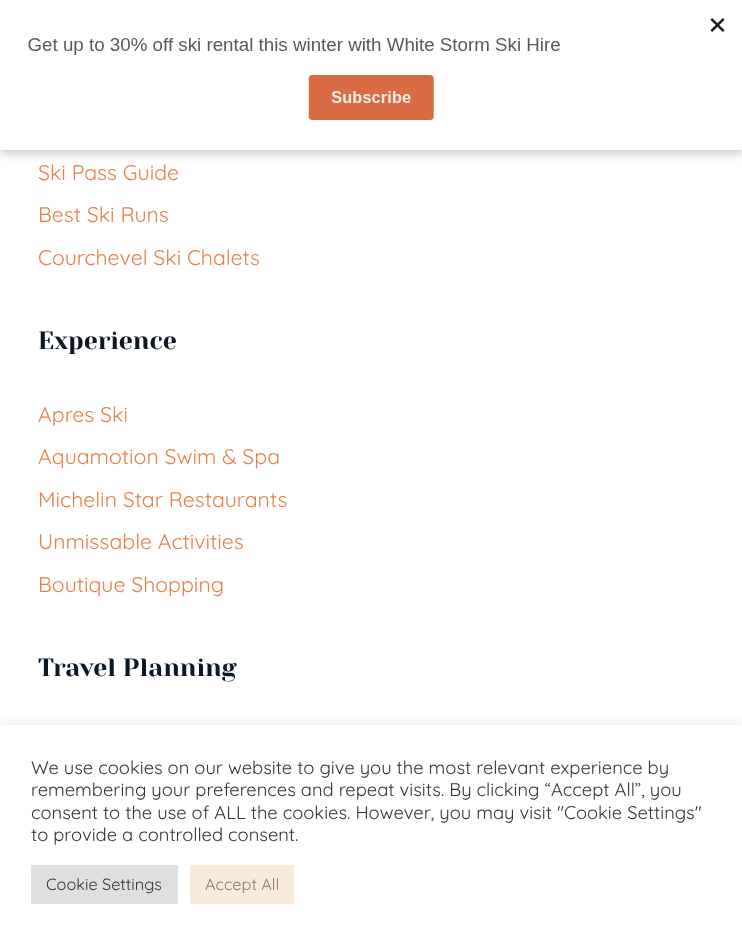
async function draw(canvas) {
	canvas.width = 742;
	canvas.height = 941;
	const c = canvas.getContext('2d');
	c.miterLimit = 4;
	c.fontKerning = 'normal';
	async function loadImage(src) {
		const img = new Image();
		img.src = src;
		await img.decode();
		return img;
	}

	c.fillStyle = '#fff';
	c.fillRect(0, 0, 742, 941);
	c.fillStyle = '#00000033';
	c.filter = 'blur(4px)';
	c.beginPath();
	c.rect(0, 4, 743, 150);
	c.fill();
	c.filter = 'none';
	c.fillStyle = '#fff';
	c.fillRect(0, 0, 742, 150);
	c.drawImage(await loadImage('img1.png'), 28, 18, 697, 102);
	c.font = '21.25px Quicksand';
	c.fillStyle = '#e87f4b';
	for (const [text, x, y] of [
		['Ski Pass Guide', 38, 180],
		['Best Ski Runs', 38, 222],
		['Courchevel Ski Chalets', 38, 265],
	]) {
		c.fillText(text, x, y);
	}
	c.font = '25px Yeseva One';
	c.fillStyle = '#0b1927';
	c.fillText('Experience', 38, 349);
	c.font = '21.25px Quicksand';
	c.fillStyle = '#e87f4b';
	for (const [text, x, y] of [
		['Apres Ski', 38, 422],
		['Aquamotion Swim & Spa', 38, 464],
		['Michelin Star Restaurants', 38, 507],
		['Unmissable Activities', 38, 549],
		['Boutique Shopping', 38, 592],
	]) {
		c.fillText(text, x, y);
	}
	c.font = '25px Yeseva One';
	c.fillStyle = '#0b1927';
	c.fillText('Travel Planning', 38, 676);
	c.fillStyle = '#acabab4d';
	c.filter = 'blur(6px)';
	c.beginPath();
	c.rect(0, 724, 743, 216);
	c.fill();
	c.filter = 'none';
	c.fillStyle = '#fff';
	c.fillRect(0, 725, 742, 216);
	c.font = '18.35px Quicksand';
	c.fillStyle = '#333';
	for (const [text, x, y] of [
		['We use cookies on our website to give you the most relevant experience by', 31, 774],
		['remembering your preferences and repeat visits. By clicking “Accept All”, you', 31, 796],
		['consent to the use of ALL the cookies. However, you may visit "Cookie Settings"', 31, 819],
		['to provide a controlled consent.', 31, 841],
	]) {
		c.fillText(text, x, y);
	}
	c.fillStyle = '#dedfe0';
	c.fillRect(31, 865, 147, 39);
	c.font = '16.25px Quicksand';
	c.fillStyle = '#333';
	c.fillText('Cookie Settings', 46, 890);
	c.fillStyle = '#f9ebd9';
	c.fillRect(190, 865, 104, 39);
	c.fillStyle = '#7c7c7c';
	c.fillText('Accept All', 205, 890);
}

draw(document.querySelector('canvas'));
